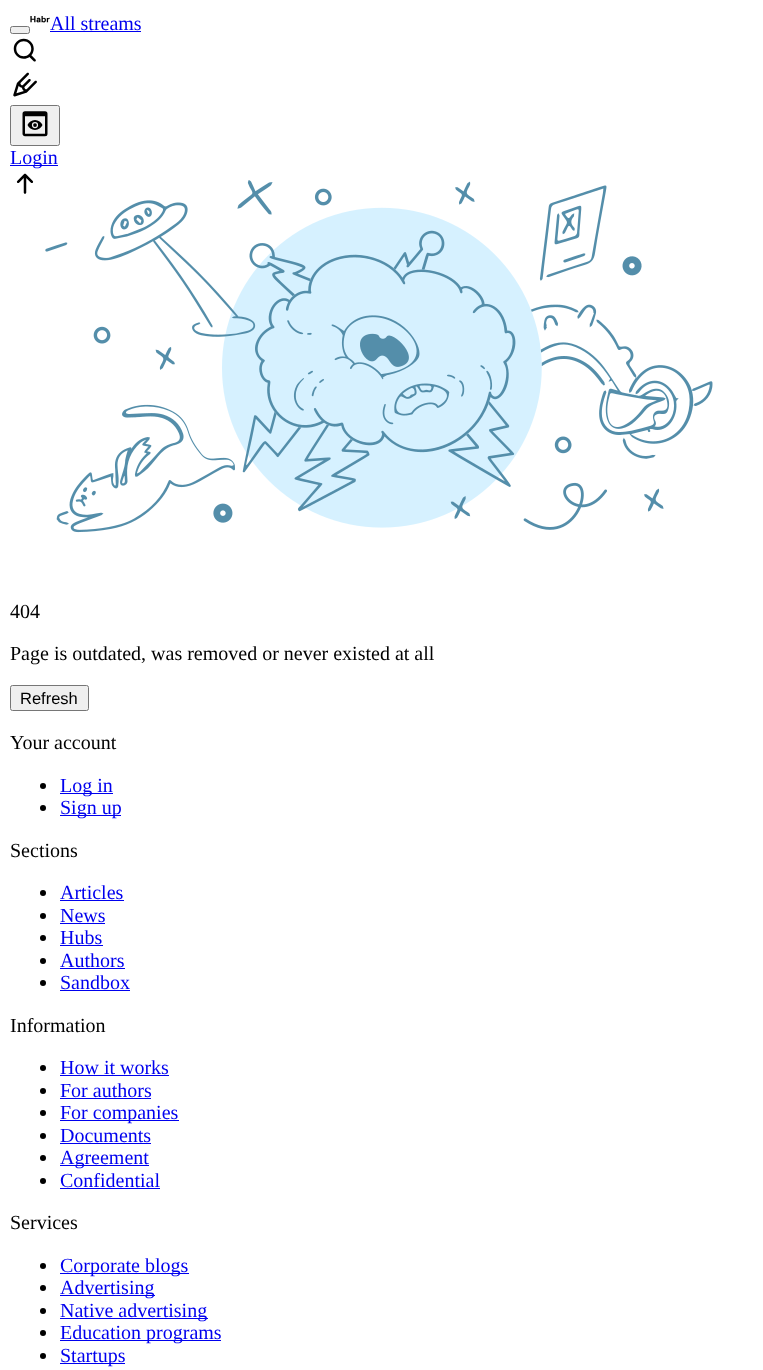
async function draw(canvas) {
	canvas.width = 763;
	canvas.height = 1370;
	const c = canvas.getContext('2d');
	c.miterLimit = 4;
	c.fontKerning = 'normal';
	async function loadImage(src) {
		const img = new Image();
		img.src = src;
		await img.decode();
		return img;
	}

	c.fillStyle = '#fff';
	c.fillRect(0, 0, 763, 1370);
	c.fillStyle = '#efefef';
	c.beginPath();
	c.roundRect(10.5, 26.5, 19, 7, 2);
	c.fill();
	c.strokeStyle = '#767676';
	c.stroke();
	c.drawImage(await loadImage('img1.png'), 30, 16, 20, 7);
	c.font = '20px Liberation Serif';
	c.fillStyle = '#00e';
	c.fillText('All streams', 50, 30);
	c.fillRect(50, 31, 91, 1);
	c.drawImage(await loadImage('img2.png'), 13, 38, 23, 24);
	c.drawImage(await loadImage('img3.png'), 13, 72, 24, 25);
	c.fillStyle = '#efefef';
	c.beginPath();
	c.roundRect(10.5, 105.5, 49, 40, 2);
	c.fill();
	c.stroke();
	c.drawImage(await loadImage('img4.png'), 22, 111, 26, 26);
	c.fillStyle = '#00e';
	c.fillRect(10, 165, 48, 1);
	c.fillText('Login', 10, 164);
	c.drawImage(await loadImage('img5.png'), 16, 173, 18, 21);
	c.drawImage(await loadImage('img6.png'), 45, 180, 668, 353);
	c.fillStyle = '#000';
	c.fillText('404', 10, 618);
	c.fillText('Page is outdated, was removed or never existed at all', 10, 660);
	c.fillStyle = '#efefef';
	c.beginPath();
	c.roundRect(10.5, 685.5, 78, 25, 2);
	c.fill();
	c.stroke();
	c.font = '16.5px Liberation Sans';
	c.fillStyle = '#000';
	c.fillText('Refresh', 20, 704);
	c.font = '20px Liberation Serif';
	c.fillText('Your account', 10, 749);
	c.beginPath();
	c.arc(43, 786, 3, 0, 2 * Math.PI);
	c.fill();
	c.fillStyle = '#00e';
	c.fillRect(60, 793, 53, 1);
	c.fillText('Log in', 60, 792);
	c.fillStyle = '#000';
	c.beginPath();
	c.arc(43, 808, 3, 0, 2 * Math.PI);
	c.fill();
	c.fillStyle = '#00e';
	c.fillRect(60, 815, 61, 1);
	c.fillText('Sign up', 60, 814);
	c.fillStyle = '#000';
	c.fillText('Sections', 10, 857);
	c.beginPath();
	c.arc(43, 893, 3, 0, 2 * Math.PI);
	c.fill();
	c.fillStyle = '#00e';
	c.fillText('Articles', 60, 899);
	c.fillRect(60, 900, 64, 1);
	c.fillStyle = '#000';
	c.beginPath();
	c.arc(43, 916, 3, 0, 2 * Math.PI);
	c.fill();
	c.fillStyle = '#00e';
	c.fillText('News', 60, 922);
	c.fillRect(60, 923, 45, 1);
	c.fillStyle = '#000';
	c.beginPath();
	c.arc(43, 938, 3, 0, 2 * Math.PI);
	c.fill();
	c.fillStyle = '#00e';
	c.fillText('Hubs', 60, 944);
	c.fillRect(60, 945, 43, 1);
	c.fillStyle = '#000';
	c.beginPath();
	c.arc(43, 961, 3, 0, 2 * Math.PI);
	c.fill();
	c.fillStyle = '#00e';
	c.fillText('Authors', 60, 967);
	c.fillRect(60, 968, 65, 1);
	c.fillStyle = '#000';
	c.beginPath();
	c.arc(43, 983, 3, 0, 2 * Math.PI);
	c.fill();
	c.fillStyle = '#00e';
	c.fillText('Sandbox', 60, 989);
	c.fillRect(60, 990, 70, 1);
	c.fillStyle = '#000';
	c.fillText('Information', 10, 1032);
	c.beginPath();
	c.arc(43, 1068, 3, 0, 2 * Math.PI);
	c.fill();
	c.fillStyle = '#00e';
	c.fillText('How it works', 60, 1074);
	c.fillRect(60, 1075, 109, 1);
	c.fillStyle = '#000';
	c.beginPath();
	c.arc(43, 1091, 3, 0, 2 * Math.PI);
	c.fill();
	c.fillStyle = '#00e';
	c.fillText('For authors', 60, 1097);
	c.fillRect(60, 1098, 91, 1);
	c.fillStyle = '#000';
	c.beginPath();
	c.arc(43, 1113, 3, 0, 2 * Math.PI);
	c.fill();
	c.fillStyle = '#00e';
	c.fillRect(60, 1120, 119, 1);
	c.fillText('For companies', 60, 1119);
	c.fillStyle = '#000';
	c.beginPath();
	c.arc(43, 1136, 3, 0, 2 * Math.PI);
	c.fill();
	c.fillStyle = '#00e';
	c.fillText('Documents', 60, 1142);
	c.fillRect(60, 1143, 91, 1);
	c.fillStyle = '#000';
	c.beginPath();
	c.arc(43, 1158, 3, 0, 2 * Math.PI);
	c.fill();
	c.fillStyle = '#00e';
	c.fillRect(60, 1165, 89, 1);
	c.fillText('Agreement', 60, 1164);
	c.fillStyle = '#000';
	c.beginPath();
	c.arc(43, 1181, 3, 0, 2 * Math.PI);
	c.fill();
	c.fillStyle = '#00e';
	c.fillText('Confidential', 60, 1187);
	c.fillRect(60, 1188, 100, 1);
	c.fillStyle = '#000';
	c.fillText('Services', 10, 1229);
	c.beginPath();
	c.arc(43, 1266, 3, 0, 2 * Math.PI);
	c.fill();
	c.fillStyle = '#00e';
	c.fillRect(60, 1273, 129, 1);
	c.fillText('Corporate blogs', 60, 1272);
	c.fillStyle = '#000';
	c.beginPath();
	c.arc(43, 1288, 3, 0, 2 * Math.PI);
	c.fill();
	c.fillStyle = '#00e';
	c.fillRect(60, 1295, 95, 1);
	c.fillText('Advertising', 60, 1294);
	c.fillStyle = '#000';
	c.beginPath();
	c.arc(43, 1311, 3, 0, 2 * Math.PI);
	c.fill();
	c.fillStyle = '#00e';
	c.fillRect(60, 1318, 148, 1);
	c.fillText('Native advertising', 60, 1317);
	c.fillStyle = '#000';
	c.beginPath();
	c.arc(43, 1333, 3, 0, 2 * Math.PI);
	c.fill();
	c.fillStyle = '#00e';
	c.fillRect(60, 1340, 161, 1);
	c.fillText('Education programs', 60, 1339);
	c.fillStyle = '#000';
	c.beginPath();
	c.arc(43, 1356, 3, 0, 2 * Math.PI);
	c.fill();
	c.fillStyle = '#00e';
	c.fillRect(60, 1363, 65, 1);
	c.fillText('Startups', 60, 1362);
}

draw(document.querySelector('canvas'));
